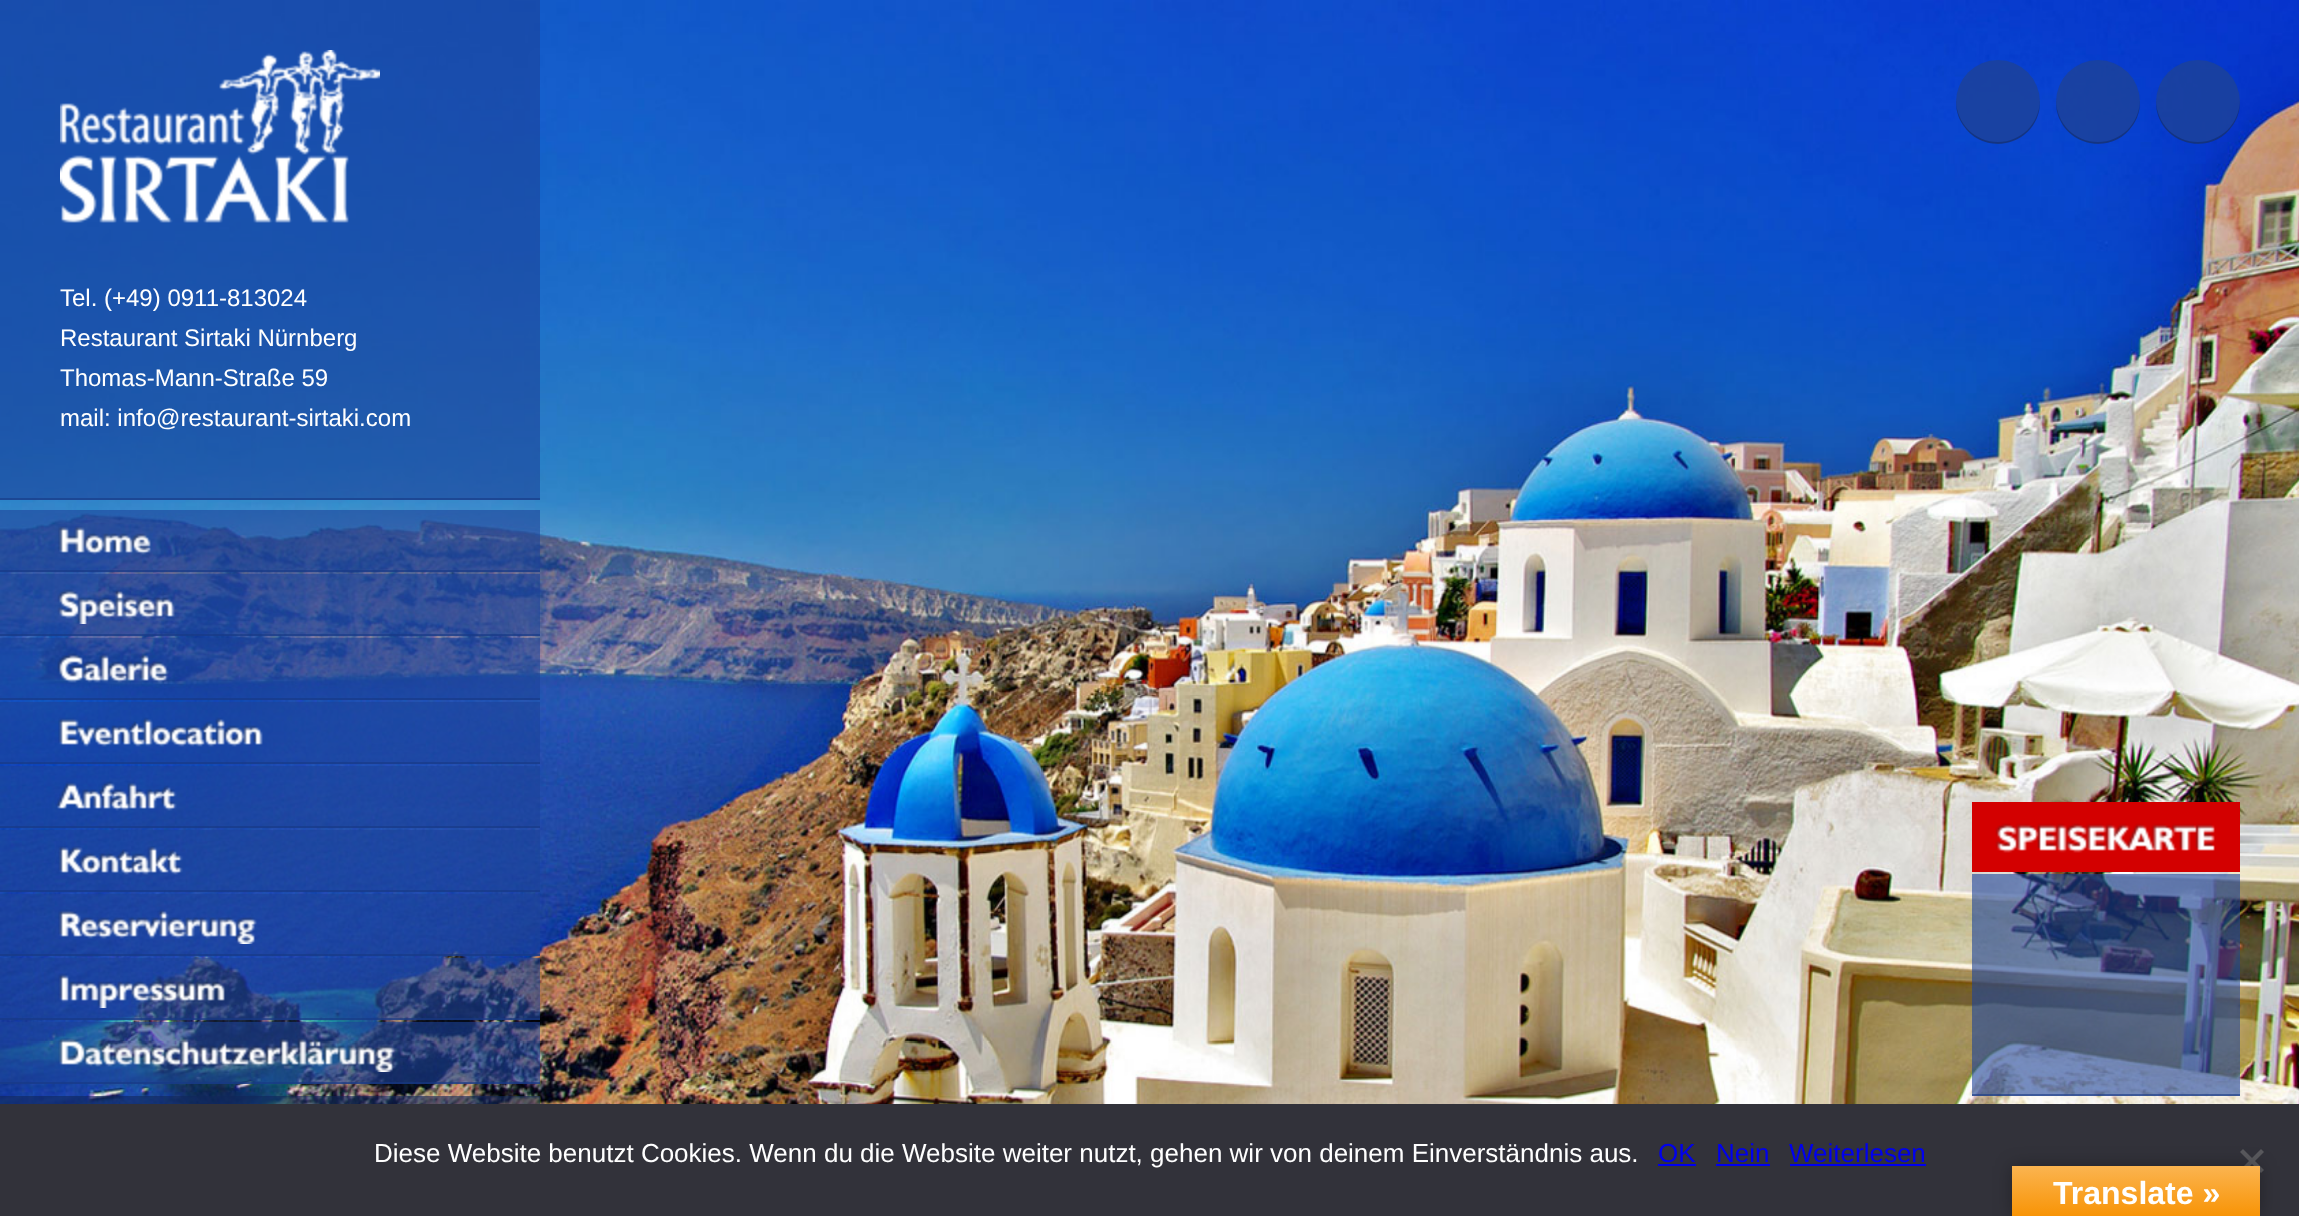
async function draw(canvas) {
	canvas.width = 2299;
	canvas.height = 1216;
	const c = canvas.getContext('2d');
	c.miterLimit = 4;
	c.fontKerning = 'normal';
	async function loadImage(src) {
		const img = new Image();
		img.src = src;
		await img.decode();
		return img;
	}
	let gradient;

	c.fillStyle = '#fff';
	c.fillRect(0, 0, 2299, 1216);
	c.drawImage(await loadImage('img1.png'), 0, 0, 2299, 1104);
	c.fillStyle = '#1c429a99';
	c.fillRect(0, 0, 540, 500);
	c.fillStyle = '#18398499';
	c.fillRect(0, 498, 540, 2);
	c.drawImage(await loadImage('img2.png'), 60, 50, 320, 173);
	c.font = '24px Liberation Sans';
	c.fillStyle = '#fff';
	for (const [text, x, y] of [
		['Tel. (+49) 0911-813024', 60, 306],
		['Restaurant Sirtaki Nürnberg', 60, 346],
		['Thomas-Mann-Straße 59', 60, 386],
		['mail: info@restaurant-sirtaki.com', 60, 426],
	]) {
		c.fillText(text, x, y);
	}
	c.fillStyle = '#1c429a99';
	c.fillRect(0, 510, 540, 62);
	c.fillStyle = '#18398499';
	c.fillRect(0, 570, 540, 2);
	c.drawImage(await loadImage('img3.png'), 58, 526, 93, 29);
	c.fillStyle = '#1c429a99';
	c.fillRect(0, 574, 540, 62);
	c.fillStyle = '#18398499';
	c.fillRect(0, 634, 540, 2);
	c.drawImage(await loadImage('img4.png'), 57, 589, 118, 35);
	c.fillStyle = '#1c429a99';
	c.fillRect(0, 638, 540, 62);
	c.fillStyle = '#18398499';
	c.fillRect(0, 698, 540, 2);
	c.drawImage(await loadImage('img5.png'), 57, 653, 112, 30);
	c.fillStyle = '#1c429a99';
	c.fillRect(0, 702, 540, 62);
	c.fillStyle = '#18398499';
	c.fillRect(0, 762, 540, 2);
	c.drawImage(await loadImage('img6.png'), 58, 717, 205, 30);
	c.fillStyle = '#1c429a99';
	c.fillRect(0, 766, 540, 62);
	c.fillStyle = '#18398499';
	c.fillRect(0, 826, 540, 2);
	c.drawImage(await loadImage('img7.png'), 55, 781, 122, 30);
	c.fillStyle = '#1c429a99';
	c.fillRect(0, 830, 540, 62);
	c.fillStyle = '#18398499';
	c.fillRect(0, 890, 540, 2);
	c.drawImage(await loadImage('img8.png'), 58, 846, 125, 29);
	c.fillStyle = '#1c429a99';
	c.fillRect(0, 894, 540, 62);
	c.fillStyle = '#18398499';
	c.fillRect(0, 954, 540, 2);
	c.drawImage(await loadImage('img9.png'), 58, 909, 199, 35);
	c.fillStyle = '#1c429a99';
	c.fillRect(0, 958, 540, 62);
	c.fillStyle = '#18398499';
	c.fillRect(0, 1018, 540, 2);
	c.drawImage(await loadImage('img10.png'), 58, 973, 167, 35);
	c.fillStyle = '#1c429a99';
	c.fillRect(0, 1022, 540, 62);
	c.fillStyle = '#18398499';
	c.fillRect(0, 1082, 540, 2);
	c.drawImage(await loadImage('img11.png'), 58, 1038, 337, 34);
	c.fillStyle = '#10265999';
	c.fillRect(0, 1096, 540, 8);
	c.fillStyle = '#1c429ad9';
	c.beginPath();
	c.arc(1998, 102, 42, 0, 2 * Math.PI);
	c.fill();
	c.fillStyle = '#00000033';
	c.beginPath();
	c.moveTo(1956, 101);
	c.bezierCurveTo(1956, 110, 1958, 118, 1963, 125);
	c.bezierCurveTo(1986, 160, 2041, 143, 2040, 101);
	c.bezierCurveTo(2039, 124, 2021, 142, 1998, 142);
	c.bezierCurveTo(1975, 142, 1957, 124, 1956, 101);
	c.closePath();
	c.fill();
	c.fillStyle = '#1c429ad9';
	c.beginPath();
	c.arc(2098, 102, 42, 0, 2 * Math.PI);
	c.fill();
	c.fillStyle = '#00000033';
	c.beginPath();
	c.moveTo(2056, 101);
	c.bezierCurveTo(2055, 143, 2110, 160, 2133, 125);
	c.bezierCurveTo(2138, 118, 2140, 110, 2140, 101);
	c.bezierCurveTo(2139, 124, 2121, 142, 2098, 142);
	c.bezierCurveTo(2075, 142, 2057, 124, 2056, 101);
	c.closePath();
	c.fill();
	c.fillStyle = '#1c429ad9';
	c.beginPath();
	c.arc(2198, 102, 42, 0, 2 * Math.PI);
	c.fill();
	c.fillStyle = '#00000033';
	c.beginPath();
	c.moveTo(2156, 101);
	c.bezierCurveTo(2155, 143, 2210, 160, 2233, 125);
	c.bezierCurveTo(2238, 118, 2240, 110, 2240, 101);
	c.bezierCurveTo(2239, 124, 2221, 142, 2198, 142);
	c.bezierCurveTo(2175, 142, 2157, 124, 2156, 101);
	c.closePath();
	c.fill();
	c.fillStyle = '#d30000';
	c.fillRect(1972, 802, 268, 70);
	c.drawImage(await loadImage('img12.png'), 1995, 823, 220, 30);
	for (const [x, y, w, h, color] of [
		[1972, 874, 268, 222, '#1c429a99'],
		[1972, 1094, 268, 2, '#18398499'],
		[0, 1104, 2299, 112, '#32323a'],
	]) {
		c.fillStyle = color;
		c.fillRect(x, y, w, h);
	}
	c.font = '26px Liberation Sans';
	c.fillStyle = '#fff';
	c.fillText('Diese Website benutzt Cookies. Wenn du die Website weiter nutzt, gehen wir von deinem Einverständnis aus.', 374, 1162);
	c.fillStyle = '#00e';
	c.fillText('OK', 1658, 1162);
	c.fillRect(1658, 1164, 38, 2);
	c.fillText('Nein', 1716, 1162);
	c.fillRect(1716, 1164, 54, 2);
	c.fillText('Weiterlesen', 1789, 1162);
	c.fillRect(1790, 1164, 136, 2);
	c.fillStyle = '#59595d';
	c.beginPath();
	c.moveTo(2261, 1149);
	c.lineTo(2264, 1152);
	c.lineTo(2243, 1173);
	c.lineTo(2240, 1170);
	c.closePath();
	c.fill();
	c.beginPath();
	c.moveTo(2240, 1152);
	c.lineTo(2243, 1149);
	c.lineTo(2264, 1170);
	c.lineTo(2261, 1173);
	c.closePath();
	c.fill();
	c.fillStyle = '#0000004d';
	c.filter = 'blur(9px)';
	c.beginPath();
	c.rect(2012, 1166, 248, 50);
	c.fill();
	c.filter = 'none';
	gradient = c.createLinearGradient(2136, 1166, 2136, 1216);
	gradient.addColorStop(0, '#fbb450');
	gradient.addColorStop(1, '#f89406');
	c.fillStyle = gradient;
	c.fillRect(2012, 1166, 248, 50);
	c.font = 'bold 32px Liberation Sans';
	c.fillStyle = '#fff';
	c.fillText('Translate »', 2053, 1204);
}

draw(document.querySelector('canvas'));
